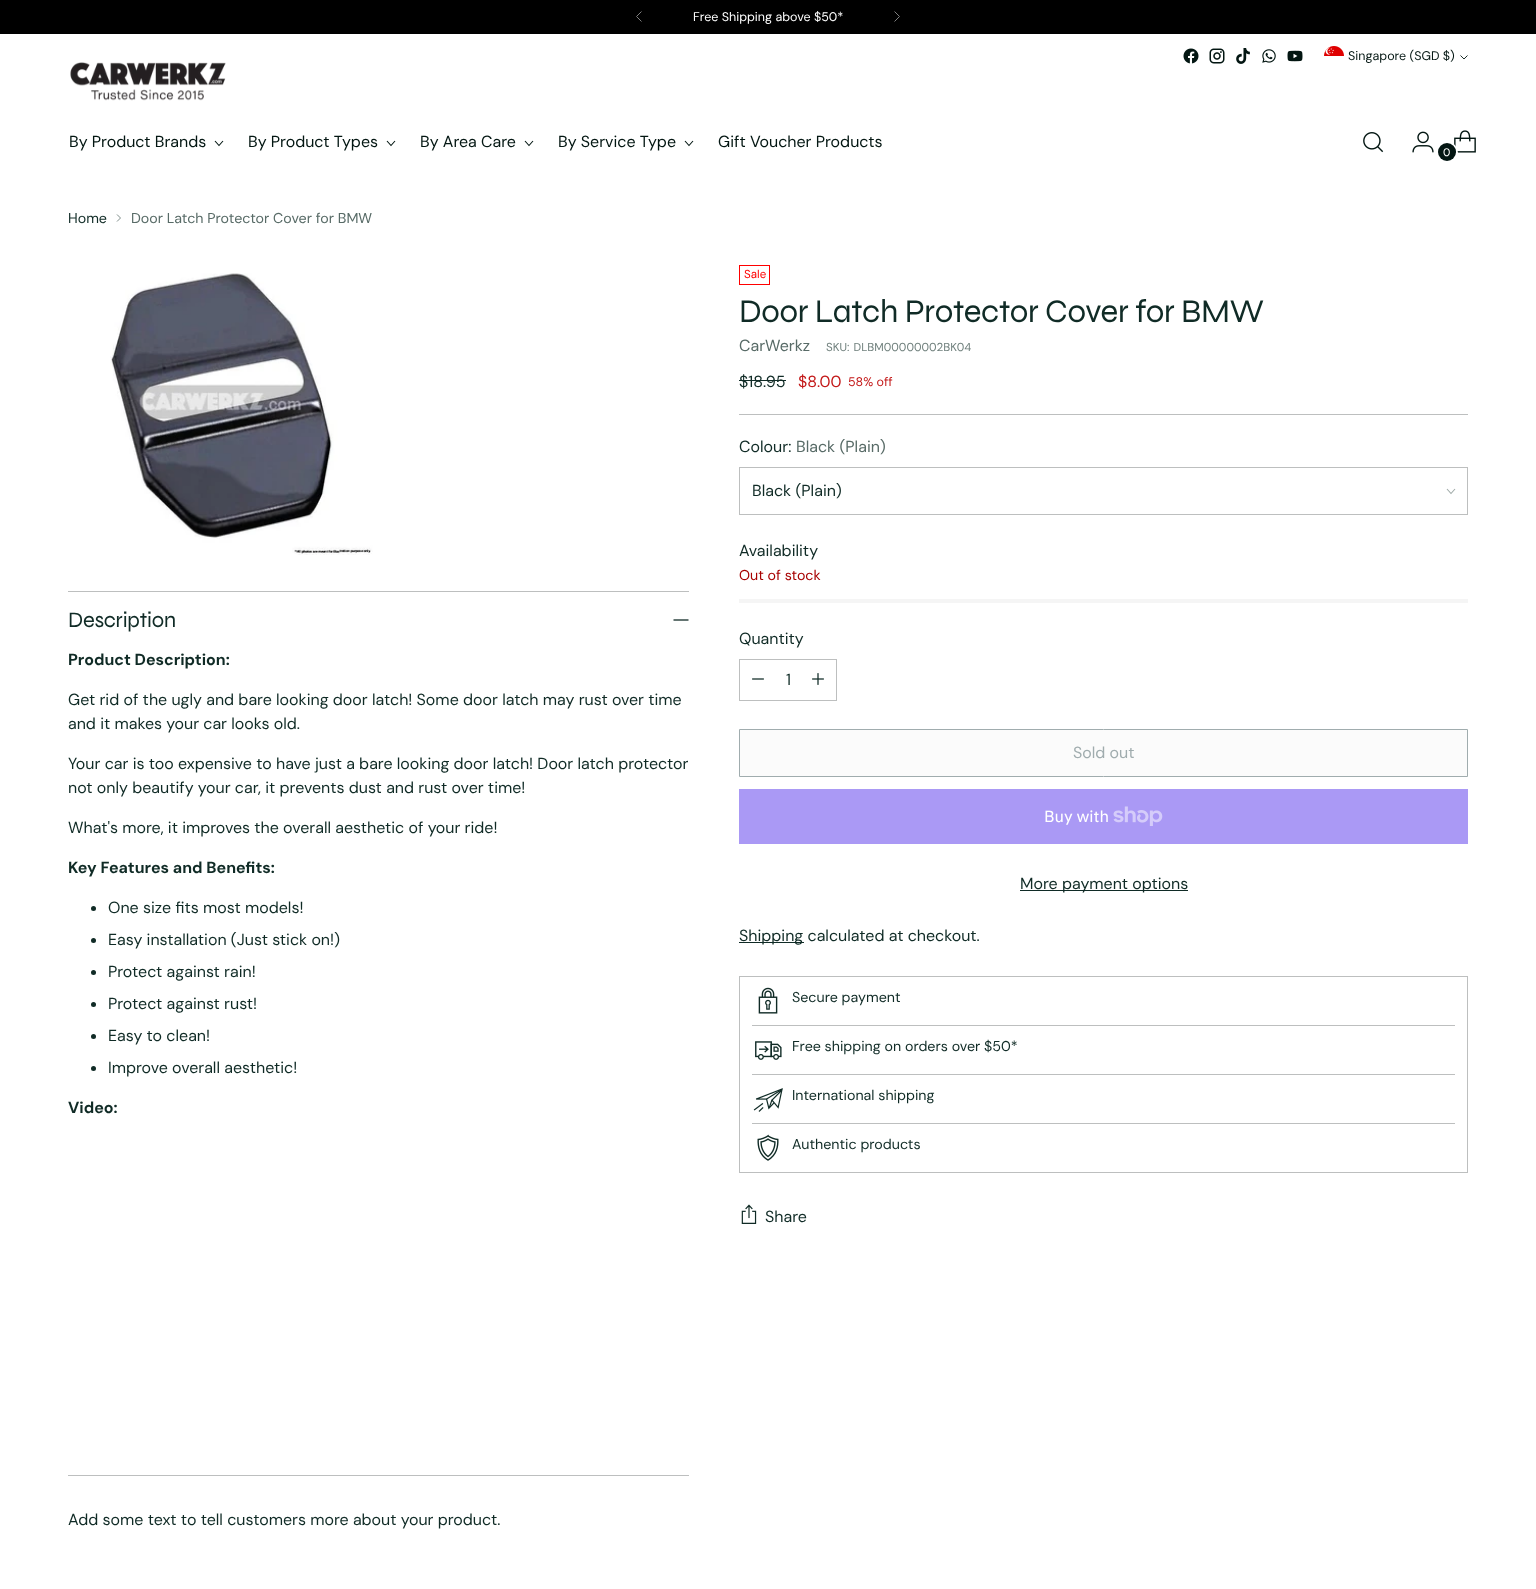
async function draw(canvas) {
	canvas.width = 1536;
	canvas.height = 1589;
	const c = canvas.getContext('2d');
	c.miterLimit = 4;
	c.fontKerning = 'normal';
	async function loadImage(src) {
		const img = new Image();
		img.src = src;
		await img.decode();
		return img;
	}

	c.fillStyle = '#fff';
	c.fillRect(0, 0, 1536, 1589);
	c.fillStyle = '#000';
	c.fillRect(0, 0, 1536, 34);
	c.beginPath();
	c.moveTo(641.5, 11.5);
	c.lineTo(636.5, 16.5);
	c.lineTo(641.5, 21.5);
	c.strokeStyle = '#808080';
	c.stroke();
	c.beginPath();
	c.moveTo(894.5, 21.5);
	c.lineTo(899.5, 16.5);
	c.lineTo(894.5, 11.5);
	c.stroke();
	c.font = '12.5px "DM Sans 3"';
	c.fillStyle = '#fff';
	c.fillText('Free Shipping above $50*', 693, 21);
	c.drawImage(await loadImage('img1.png'), 1183, 48, 16, 16);
	c.drawImage(await loadImage('img2.png'), 1209, 48, 16, 16);
	c.drawImage(await loadImage('img3.png'), 1236, 48, 14, 16);
	c.drawImage(await loadImage('img4.png'), 1262, 49, 14, 14);
	c.drawImage(await loadImage('img5.png'), 1287, 50, 16, 12);
	c.drawImage(await loadImage('img6.png'), 1324, 46, 20, 10);
	c.fillStyle = '#031612';
	c.fillText('Singapore (SGD $)', 1348, 60);
	c.beginPath();
	c.moveTo(1460.5, 55.5);
	c.lineTo(1464, 59);
	c.lineTo(1467.5, 55.5);
	c.strokeStyle = '#031612';
	c.lineWidth = 0.9;
	c.stroke();
	c.drawImage(await loadImage('img7.png'), 70, 62, 156, 39);
	c.font = '16px DM Sans';
	c.fillText('By Product Brands', 69, 147);
	c.beginPath();
	c.moveTo(215, 141);
	c.lineTo(219, 145.5);
	c.lineTo(223, 141);
	c.lineWidth = 1.1;
	c.stroke();
	c.fillText('By Product Types', 248, 147);
	c.beginPath();
	c.moveTo(387, 141);
	c.lineTo(391, 145.5);
	c.lineTo(395, 141);
	c.stroke();
	c.fillText('By Area Care', 420, 147);
	c.beginPath();
	c.moveTo(525, 141);
	c.lineTo(529, 145.5);
	c.lineTo(533, 141);
	c.stroke();
	c.fillText('By Service Type', 558, 147);
	c.beginPath();
	c.moveTo(685, 141);
	c.lineTo(689, 145.5);
	c.lineTo(693, 141);
	c.stroke();
	c.fillText('Gift Voucher Products', 718, 147);
	c.drawImage(await loadImage('img8.png'), 1363, 132, 21, 21);
	c.drawImage(await loadImage('img9.png'), 1412, 131, 22, 22);
	c.drawImage(await loadImage('img10.png'), 1454, 130, 22, 23);
	c.beginPath();
	c.arc(1447.5, 152.5, 9.5, 0, 2 * Math.PI);
	c.strokeStyle = '#fff';
	c.lineWidth = 2;
	c.stroke();
	c.beginPath();
	c.arc(1447, 152, 9, 0, 2 * Math.PI);
	c.fill();
	c.font = '11px "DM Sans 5"';
	c.fillStyle = '#fff';
	c.fillText('0', 1443, 156);
	c.font = '14.25px "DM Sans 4"';
	c.fillStyle = '#102b26';
	c.fillText('Home', 68, 223);
	c.beginPath();
	c.moveTo(117, 221.5);
	c.lineTo(120.5, 218);
	c.lineTo(117, 214.5);
	c.strokeStyle = '#70807d';
	c.lineWidth = 0.9;
	c.stroke();
	c.fillStyle = '#586b67';
	c.fillText('Door Latch Protector Cover for BMW', 131, 223);
	c.drawImage(await loadImage('img11.png'), 110, 273, 263, 282);
	c.fillStyle = '#bdbfbf';
	c.fillRect(68, 591, 621, 1);
	c.fillRect(68, 1475, 621, 1);
	c.letterSpacing = '-0.25px';
	c.font = '22px Syne';
	c.fillStyle = '#102b26';
	c.fillText('Description', 68, 627);
	c.beginPath();
	c.moveTo(673.5, 620);
	c.lineTo(688.5, 620);
	c.strokeStyle = '#102b26';
	c.lineWidth = 1.3;
	c.stroke();
	c.letterSpacing = '0px';
	c.font = 'bold 16px DM Sans';
	c.fillText('Product Description:', 68, 665);
	c.font = '16px DM Sans';
	for (const [text, x, y] of [
		['Get rid of the ugly and bare looking door latch! Some door latch may rust over time', 68, 705],
		['and it makes your car looks old.', 68, 729],
		['Your car is too expensive to have just a bare looking door latch! Door latch protector', 68, 769],
		['not only beautify your car, it prevents dust and rust over time!', 68, 793],
		['What\'s more, it improves the overall aesthetic of your ride!', 68, 833],
	]) {
		c.fillText(text, x, y);
	}
	c.font = 'bold 16px DM Sans';
	c.fillText('Key Features and Benefits:', 68, 873);
	c.beginPath();
	c.arc(93.5, 908.5, 2.5, 0, 2 * Math.PI);
	c.fill();
	c.font = '16px DM Sans';
	c.fillText('One size fits most models!', 108, 913);
	c.beginPath();
	c.arc(93.5, 940.5, 2.5, 0, 2 * Math.PI);
	c.fill();
	c.fillText('Easy installation (Just stick on!)', 108, 945);
	c.beginPath();
	c.arc(93.5, 972.5, 2.5, 0, 2 * Math.PI);
	c.fill();
	c.fillText('Protect against rain!', 108, 977);
	c.beginPath();
	c.arc(93.5, 1004.5, 2.5, 0, 2 * Math.PI);
	c.fill();
	c.fillText('Protect against rust!', 108, 1009);
	c.beginPath();
	c.arc(93.5, 1036.5, 2.5, 0, 2 * Math.PI);
	c.fill();
	c.fillText('Easy to clean!', 108, 1041);
	c.beginPath();
	c.arc(93.5, 1068.5, 2.5, 0, 2 * Math.PI);
	c.fill();
	c.fillText('Improve overall aesthetic!', 108, 1073);
	c.font = 'bold 16px DM Sans';
	c.fillText('Video:', 68, 1113);
	c.font = '16px DM Sans';
	c.fillText('Add some text to tell customers more about your product.', 68, 1525);
	c.fillStyle = '#bdbfbf';
	c.fillRect(739, 414, 729, 1);
	c.strokeStyle = '#f00';
	c.lineWidth = 1;
	c.strokeRect(739.5, 265.5, 30, 19);
	c.font = '11.5px "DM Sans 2"';
	c.fillStyle = '#f00';
	c.fillText('Sale', 744, 278);
	c.letterSpacing = '-0.35px';
	c.font = '33px Syne';
	c.fillStyle = '#102b26';
	c.fillText('Door Latch Protector Cover for BMW', 739, 322);
	c.letterSpacing = '0px';
	c.font = '16px DM Sans';
	c.fillStyle = '#586b67';
	c.fillText('CarWerkz', 739, 351);
	c.wordSpacing = '1px';
	c.font = '11.5px "DM Sans 2"';
	c.fillStyle = '#70807d';
	c.fillText('SKU: DLBM00000002BK04', 826, 351);
	c.wordSpacing = '0px';
	c.font = '16px DM Sans';
	c.fillStyle = '#102b26';
	c.fillText('$18.95', 739, 387);
	c.fillRect(739, 380, 47, 1);
	c.fillStyle = '#c31818';
	c.fillText('$8.00', 798, 387);
	c.font = '12.5px "DM Sans 3"';
	c.fillText('58% off', 848, 386);
	c.font = '16px DM Sans';
	c.fillStyle = '#102b26';
	c.fillText('Colour:', 739, 452);
	c.fillStyle = '#586b67';
	c.fillText('Black (Plain)', 796, 452);
	c.strokeStyle = '#bdbfbf';
	c.strokeRect(739.5, 467.5, 728, 47);
	c.fillStyle = '#102b26';
	c.fillText('Black (Plain)', 752, 496);
	c.beginPath();
	c.moveTo(1447, 489);
	c.lineTo(1451, 493.5);
	c.lineTo(1455, 489);
	c.strokeStyle = '#9faaa8';
	c.lineWidth = 1.1;
	c.stroke();
	c.fillText('Availability', 739, 556);
	c.font = '14.25px "DM Sans 4"';
	c.fillStyle = '#a70100';
	c.fillText('Out of stock', 739, 580);
	c.fillStyle = '#f5f5f5';
	c.fillRect(739, 599, 729, 4);
	c.font = '16px DM Sans';
	c.fillStyle = '#102b26';
	c.fillText('Quantity', 739, 644);
	c.strokeStyle = '#bdbfbf';
	c.lineWidth = 1;
	c.strokeRect(739.5, 659.5, 97, 41);
	c.drawImage(await loadImage('img12.png'), 752, 678, 12, 2);
	c.fillText('1', 786, 685);
	c.drawImage(await loadImage('img13.png'), 812, 673, 12, 12);
	c.fillStyle = '#fbfbfb';
	c.beginPath();
	c.rect(739.5, 729.5, 728, 47);
	c.fill();
	c.strokeStyle = '#a0acae';
	c.stroke();
	c.fillStyle = '#a0acae';
	c.fillText('Sold out', 1073, 758);
	c.fillStyle = '#aa99f5';
	c.fillRect(739, 789, 729, 55);
	c.font = '16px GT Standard';
	c.fillStyle = '#fff';
	c.fillText('Buy with', 1044, 822);
	c.drawImage(await loadImage('img14.png'), 1113, 806, 50, 20);
	c.fillStyle = '#102b26';
	c.fillRect(1020, 890, 168, 1);
	c.font = '16px DM Sans';
	c.fillText('More payment options', 1020, 889);
	c.fillRect(739, 942, 65, 1);
	c.fillText('Shipping calculated at checkout.', 739, 941);
	c.strokeStyle = '#bdbfbf';
	c.strokeRect(739.5, 976.5, 728, 196);
	c.drawImage(await loadImage('img15.png'), 758, 987, 20, 27);
	c.font = '14.25px "DM Sans 4"';
	c.fillText('Secure payment', 792, 1002);
	c.fillStyle = '#bdbfbf';
	c.fillRect(752, 1025, 703, 1);
	c.drawImage(await loadImage('img16.png'), 755, 1041, 27, 19);
	c.fillStyle = '#102b26';
	c.fillText('Free shipping on orders over $50*', 792, 1051);
	c.fillStyle = '#bdbfbf';
	c.fillRect(752, 1074, 703, 1);
	c.drawImage(await loadImage('img17.png'), 753, 1088, 30, 24);
	c.fillStyle = '#102b26';
	c.fillText('International shipping', 792, 1100);
	c.fillStyle = '#bdbfbf';
	c.fillRect(752, 1123, 703, 1);
	c.drawImage(await loadImage('img18.png'), 757, 1134, 22, 27);
	c.fillStyle = '#102b26';
	c.fillText('Authentic products', 792, 1149);
	c.drawImage(await loadImage('img19.png'), 741, 1204, 16, 20);
	c.font = '16px DM Sans';
	c.fillText('Share', 765, 1222);
}

draw(document.querySelector('canvas'));
